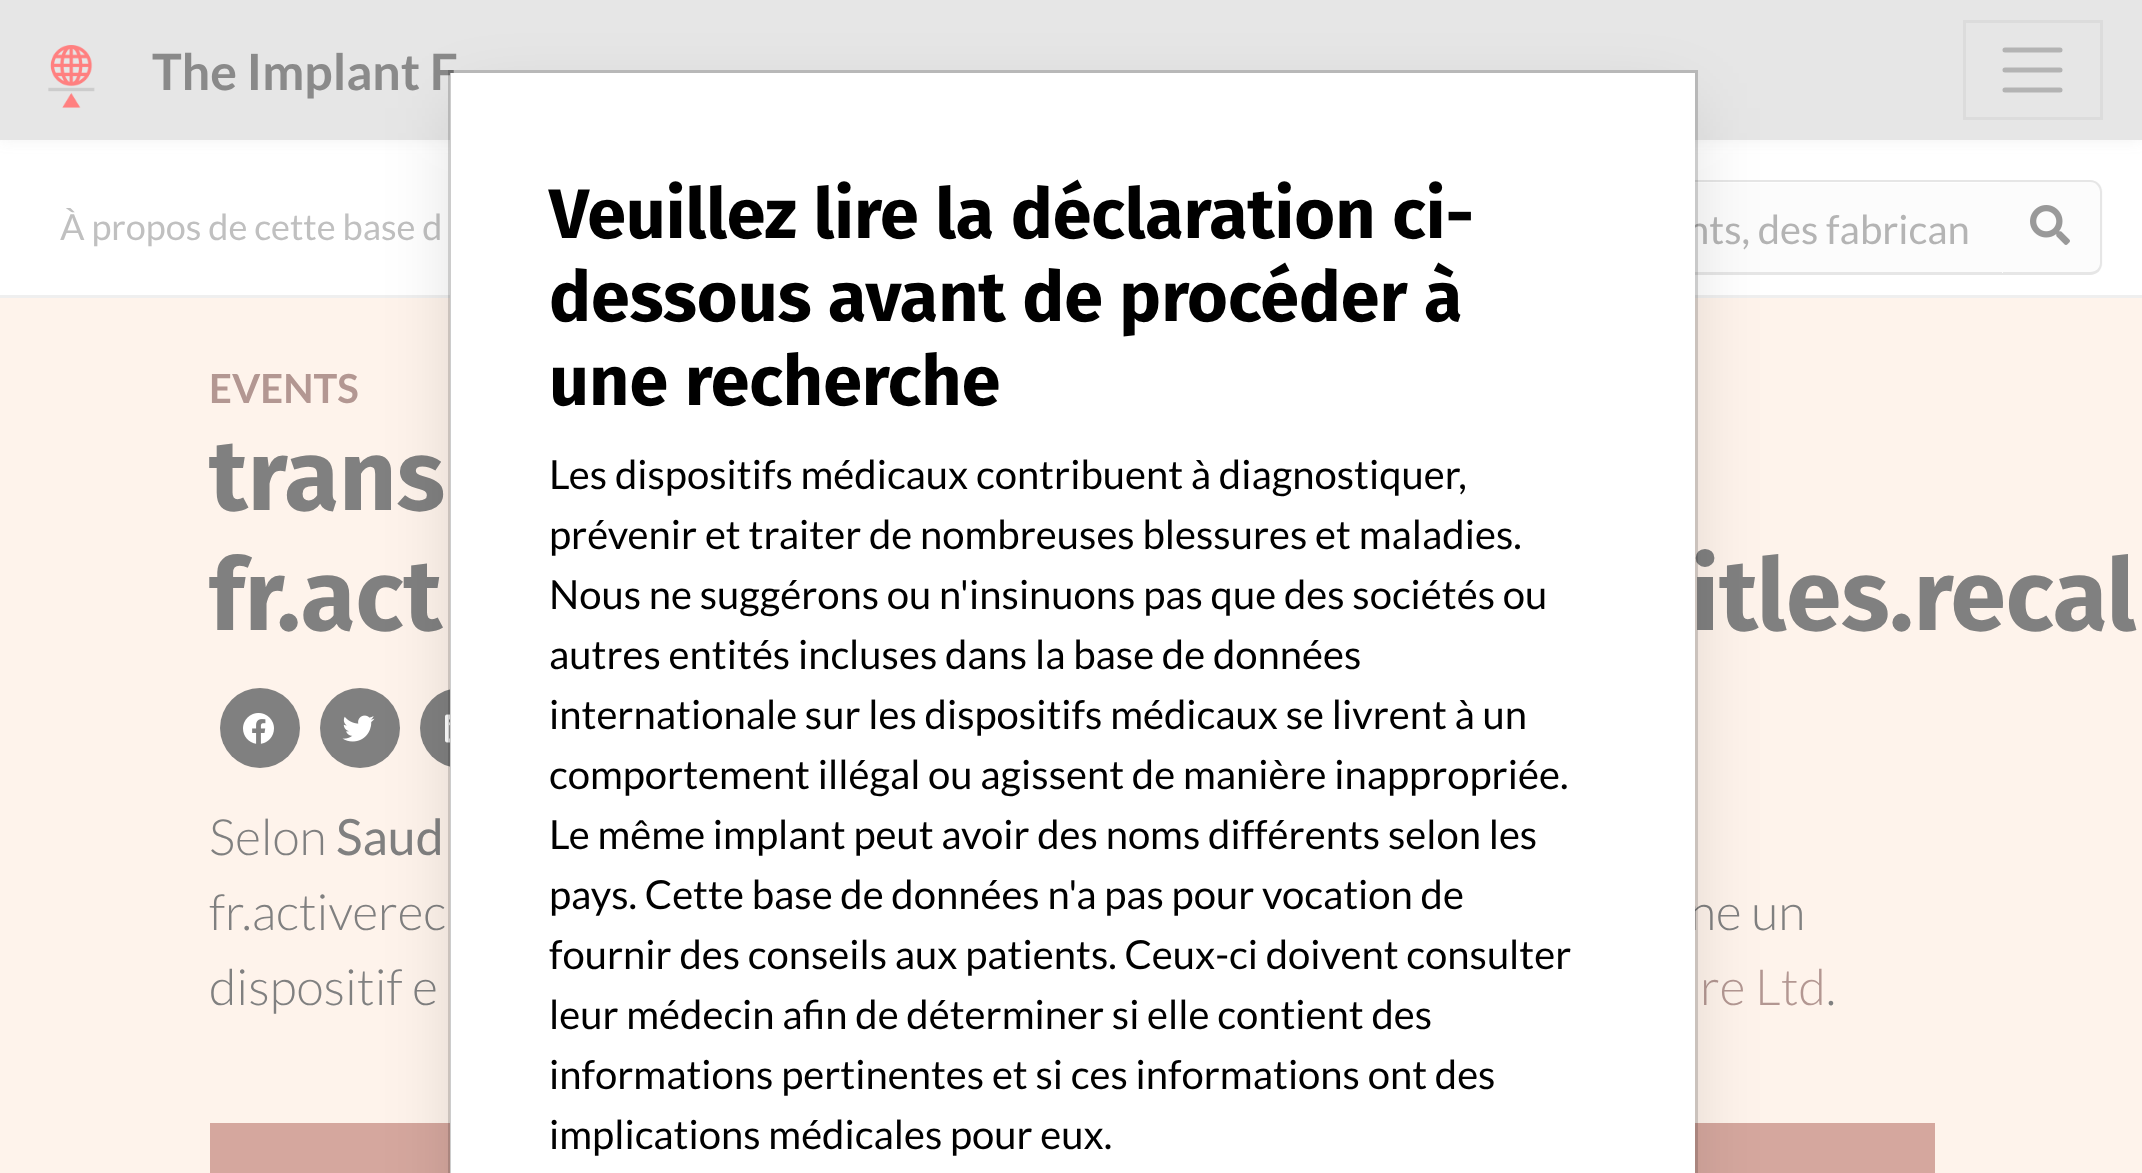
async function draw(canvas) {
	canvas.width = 2142;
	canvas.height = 1173;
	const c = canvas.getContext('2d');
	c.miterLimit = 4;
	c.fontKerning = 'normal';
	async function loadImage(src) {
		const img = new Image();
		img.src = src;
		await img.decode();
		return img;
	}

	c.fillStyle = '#fff';
	c.fillRect(0, 0, 2142, 1173);
	c.fillStyle = '#8080801a';
	c.filter = 'blur(7.5px)';
	c.beginPath();
	c.rect(0, 0, 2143, 140);
	c.fill();
	c.filter = 'none';
	c.fillStyle = '#e6e6e6';
	c.fillRect(0, 0, 2142, 140);
	c.drawImage(await loadImage('img1.png'), 48, 45, 47, 63);
	c.font = 'bold 50px Lato';
	c.fillStyle = '#8a8a8a';
	c.fillText('The Implant F', 152, 90);
	c.strokeStyle = '#dcdcdc';
	c.lineWidth = 3;
	c.strokeRect(1964.5, 21.5, 137, 97);
	c.beginPath();
	c.moveTo(2005, 50);
	c.lineTo(2060, 50);
	c.moveTo(2005, 70);
	c.lineTo(2060, 70);
	c.moveTo(2005, 90);
	c.lineTo(2060, 90);
	c.strokeStyle = '#b3b3b3';
	c.lineWidth = 5;
	c.lineCap = 'round';
	c.stroke();
	c.fillStyle = '#efefef';
	c.fillRect(0, 295, 2142, 3);
	c.font = '36px Lato';
	c.fillStyle = '#c0c0c0';
	c.fillText('À propos de cette base d', 60, 240);
	c.fillStyle = '#fcfcfc';
	c.beginPath();
	c.roundRect(2000, 180, 103, 95, [0, 13, 13, 0]);
	c.fill();
	c.fillStyle = '#e6e6e6';
	c.beginPath();
	c.moveTo(2000, 180);
	c.lineTo(2090, 180);
	c.bezierCurveTo(2097, 180, 2102, 185, 2102, 192);
	c.lineTo(2102, 263);
	c.bezierCurveTo(2102, 270, 2097, 275, 2090, 275);
	c.lineTo(2000, 275);
	c.closePath();
	c.moveTo(2000, 182);
	c.lineTo(2090, 182);
	c.bezierCurveTo(2096, 182, 2100, 187, 2100, 192);
	c.lineTo(2100, 263);
	c.bezierCurveTo(2100, 268, 2096, 272, 2090, 272);
	c.lineTo(2000, 272);
	c.closePath();
	c.fill('evenodd');
	c.fillStyle = '#fcfcfc';
	c.fillRect(1695, 183, 308, 90);
	c.fillStyle = '#e6e6e6';
	c.beginPath();
	c.moveTo(1290, 180);
	c.lineTo(2002, 180);
	c.lineTo(2002, 275);
	c.lineTo(1290, 275);
	c.bezierCurveTo(1283, 275, 1278, 270, 1278, 263);
	c.lineTo(1278, 192);
	c.bezierCurveTo(1278, 185, 1283, 180, 1290, 180);
	c.closePath();
	c.moveTo(1290, 182);
	c.lineTo(2002, 182);
	c.lineTo(2002, 272);
	c.lineTo(1290, 272);
	c.bezierCurveTo(1284, 272, 1280, 268, 1280, 263);
	c.lineTo(1280, 192);
	c.bezierCurveTo(1280, 187, 1284, 182, 1290, 182);
	c.closePath();
	c.fill('evenodd');
	c.font = '40px Lato';
	c.fillStyle = '#b4b4b4';
	c.fillText('nts, des fabrican', 1687, 244);
	c.drawImage(await loadImage('img2.png'), 2030, 205, 40, 40);
	c.fillStyle = '#fef3eb';
	c.fillRect(0, 298, 2142, 875);
	c.font = 'bold 40px Lato';
	c.fillStyle = '#b39792';
	c.fillText('EVENTS', 209, 403);
	c.font = 'bold 100px Fira Sans';
	c.fillStyle = '#808080';
	for (const [text, x, y] of [
		['trans', 209, 510],
		['fr.act', 209, 630],
		['itles.recal', 1691, 630],
	]) {
		c.fillText(text, x, y);
	}
	c.beginPath();
	c.arc(260, 728, 40, 0, 2 * Math.PI);
	c.fill();
	c.drawImage(await loadImage('img3.png'), 243, 713, 31, 31);
	c.beginPath();
	c.arc(360, 728, 40, 0, 2 * Math.PI);
	c.fill();
	c.drawImage(await loadImage('img4.png'), 342, 715, 33, 27);
	c.beginPath();
	c.arc(460, 728, 40, 0, 2 * Math.PI);
	c.fill();
	c.drawImage(await loadImage('img5.png'), 445, 714, 5, 29);
	c.font = '300 50px Lato';
	c.fillText('Selon', 209, 855);
	c.font = '50px Lato';
	c.fillText('Saud', 336, 855);
	c.font = '300 50px Lato';
	for (const [text, x, y] of [
		['fr.activerec', 209, 930],
		['ne un', 1689, 930],
		['dispositif e', 209, 1005],
	]) {
		c.fillText(text, x, y);
	}
	c.fillStyle = '#b39792';
	c.fillText('re Ltd', 1700, 1005);
	c.fillStyle = '#808080';
	c.fillText('.', 1826, 1005);
	c.fillStyle = '#d5a79e';
	c.fillRect(210, 1123, 1725, 50);
	c.save();
	c.beginPath();
	c.moveTo(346, 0);
	c.lineTo(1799, 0);
	c.lineTo(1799, 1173);
	c.lineTo(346, 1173);
	c.closePath();
	c.moveTo(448, 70);
	c.lineTo(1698, 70);
	c.lineTo(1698, 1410);
	c.lineTo(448, 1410);
	c.closePath();
	c.clip('evenodd');
	c.fillStyle = '#00000026';
	c.filter = 'blur(37.5px)';
	c.beginPath();
	c.rect(460, 108, 1225, 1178);
	c.fill();
	c.filter = 'none';
	c.restore();
	c.fillStyle = '#fff';
	c.fillRect(450, 73, 1245, 1100);
	c.strokeStyle = '#00000033';
	c.lineWidth = 3;
	c.strokeRect(449.5, 71.5, 1247, 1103);
	c.font = 'bold 70px Fira Sans';
	c.fillStyle = '#000';
	for (const [text, x, y] of [
		['Veuillez lire la déclaration ci-', 549, 238],
		['dessous avant de procéder à', 549, 321],
		['une recherche', 549, 405],
	]) {
		c.fillText(text, x, y);
	}
	c.font = '40px Lato';
	for (const [text, x, y] of [
		['Les dispositifs médicaux contribuent à diagnostiquer,', 549, 489],
		['prévenir et traiter de nombreuses blessures et maladies.', 549, 549],
		['Nous ne suggérons ou n\'insinuons pas que des sociétés ou', 549, 609],
		['autres entités incluses dans la base de données', 549, 669],
		['internationale sur les dispositifs médicaux se livrent à un', 549, 729],
		['comportement illégal ou agissent de manière inappropriée.', 549, 789],
		['Le même implant peut avoir des noms différents selon les', 549, 849],
		['pays. Cette base de données n\'a pas pour vocation de', 549, 909],
		['fournir des conseils aux patients. Ceux-ci doivent consulter', 549, 969],
		['leur médecin afin de déterminer si elle contient des', 549, 1029],
		['informations pertinentes et si ces informations ont des', 549, 1089],
		['implications médicales pour eux.', 549, 1149],
	]) {
		c.fillText(text, x, y);
	}
}

draw(document.querySelector('canvas'));
